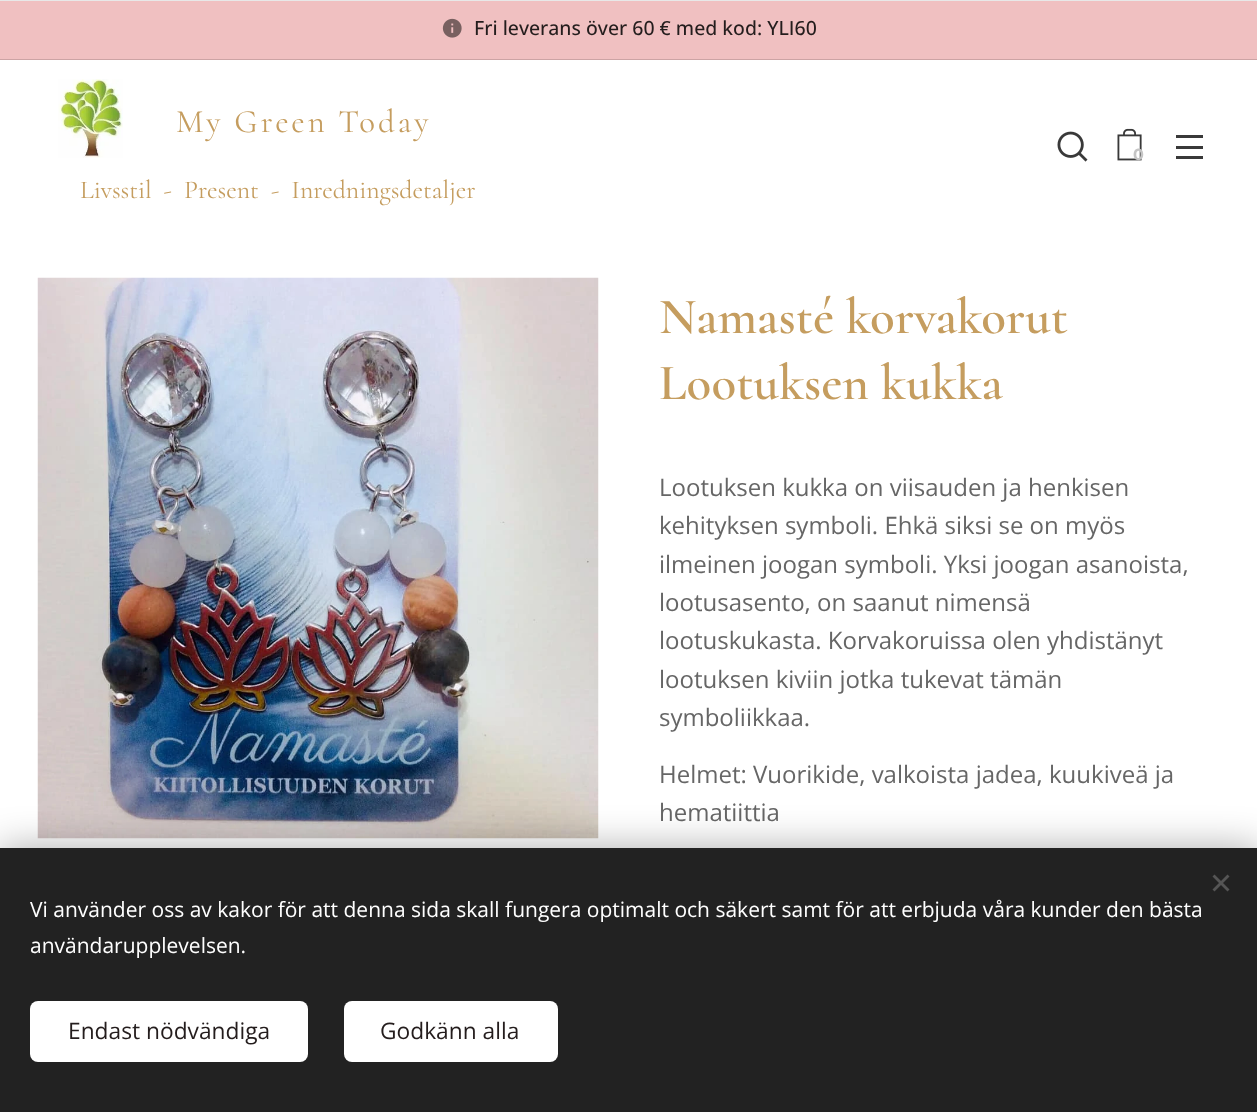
async function draw(canvas) {
	canvas.width = 1257;
	canvas.height = 1112;
	const c = canvas.getContext('2d');
	c.miterLimit = 4;
	c.fontKerning = 'normal';
	async function loadImage(src) {
		const img = new Image();
		img.src = src;
		await img.decode();
		return img;
	}

	c.fillStyle = '#fff';
	c.fillRect(0, 0, 1257, 1112);
	c.fillStyle = '#f0c0c1';
	c.fillRect(0, 1, 1257, 58);
	c.fillStyle = '#cca3a4';
	c.fillRect(0, 59, 1257, 1);
	c.drawImage(await loadImage('img1.png'), 442, 18, 20, 20);
	c.font = '500 19.5px Open Sans';
	c.fillStyle = '#241d1d';
	c.fillText('Fri leverans över 60 € med kod: YLI60', 474, 35);
	c.drawImage(await loadImage('img2.png'), 58, 79, 65, 79);
	c.letterSpacing = '3px';
	c.font = '32.75px Cormorant';
	c.fillStyle = '#c59d5f';
	c.fillText('My Green Today', 176, 132);
	c.letterSpacing = '0px';
	c.font = '25.75px Cormorant';
	c.fillText('Livsstil  -  Present', 80, 198);
	c.fillText('-  Inredningsdetaljer', 271, 198);
	c.fillStyle = '#e8e8e8';
	c.fillRect(0, 0, 1257, 1);
	c.drawImage(await loadImage('img3.png'), 1057, 131, 31, 31);
	c.drawImage(await loadImage('img4.png'), 1117, 128, 25, 33);
	c.font = 'bold 16px Montserrat';
	c.fillStyle = '#c5c5c5';
	c.fillText('0', 1133, 160);
	for (const [x, y, w, h, color] of [
		[1176, 146, 27, 3, '#393939'],
		[1176, 135, 27, 3, '#393939'],
		[1176, 156, 27, 3, '#393939'],
	]) {
		c.fillStyle = color;
		c.fillRect(x, y, w, h);
	}
	c.drawImage(await loadImage('img5.png'), 37, 277, 562, 562);
	c.font = '600 51px Cormorant';
	c.fillStyle = '#c59d5f';
	c.fillText('Namasté korvakorut', 659, 333);
	c.fillText('Lootuksen kukka', 659, 399);
	c.font = '24px Open Sans';
	c.fillStyle = '#666';
	for (const [text, x, y] of [
		['Lootuksen kukka on viisauden ja henkisen', 659, 496],
		['kehityksen symboli. Ehkä siksi se on myös', 659, 534],
		['ilmeinen joogan symboli. Yksi joogan asanoista,', 659, 573],
		['lootusasento, on saanut nimensä', 659, 611],
		['lootuskukasta. Korvakoruissa olen yhdistänyt', 659, 649],
		['lootuksen kiviin jotka tukevat tämän', 659, 688],
		['symboliikkaa.', 659, 726],
		['Helmet: Vuorikide, valkoista jadea, kuukiveä ja', 659, 783],
		['hematiittia', 659, 821],
	]) {
		c.fillText(text, x, y);
	}
	c.fillStyle = '#00000054';
	c.filter = 'blur(19px)';
	c.beginPath();
	c.rect(0, 848, 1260, 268);
	c.fill();
	c.filter = 'none';
	c.fillStyle = '#222';
	c.fillRect(0, 848, 1257, 264);
	c.fillStyle = '#555';
	c.beginPath();
	c.moveTo(1212.5, 889.5);
	c.lineTo(1227.5, 874.5);
	c.lineTo(1229.5, 876.5);
	c.lineTo(1214.5, 891.5);
	c.closePath();
	c.fill();
	c.beginPath();
	c.moveTo(1214.5, 874.5);
	c.lineTo(1229.5, 889.5);
	c.lineTo(1227.5, 891.5);
	c.lineTo(1212.5, 876.5);
	c.closePath();
	c.fill();
	c.font = '21px Open Sans';
	c.fillStyle = '#fff';
	c.fillText('Vi använder oss av kakor för att denna sida skall fungera optimalt och säkert samt för att erbjuda våra kunder den bästa', 30, 917);
	c.fillText('användarupplevelsen.', 30, 953);
	c.beginPath();
	c.roundRect(30, 1001, 278, 61, 8);
	c.fill();
	c.font = '22.75px Open Sans';
	c.fillStyle = '#241d1d';
	c.fillText('Endast nödvändiga', 68, 1039);
	c.fillStyle = '#fff';
	c.beginPath();
	c.roundRect(344, 1001, 214, 61, 8);
	c.fill();
	c.fillStyle = '#241d1d';
	c.fillText('Godkänn alla', 380, 1039);
}

draw(document.querySelector('canvas'));
